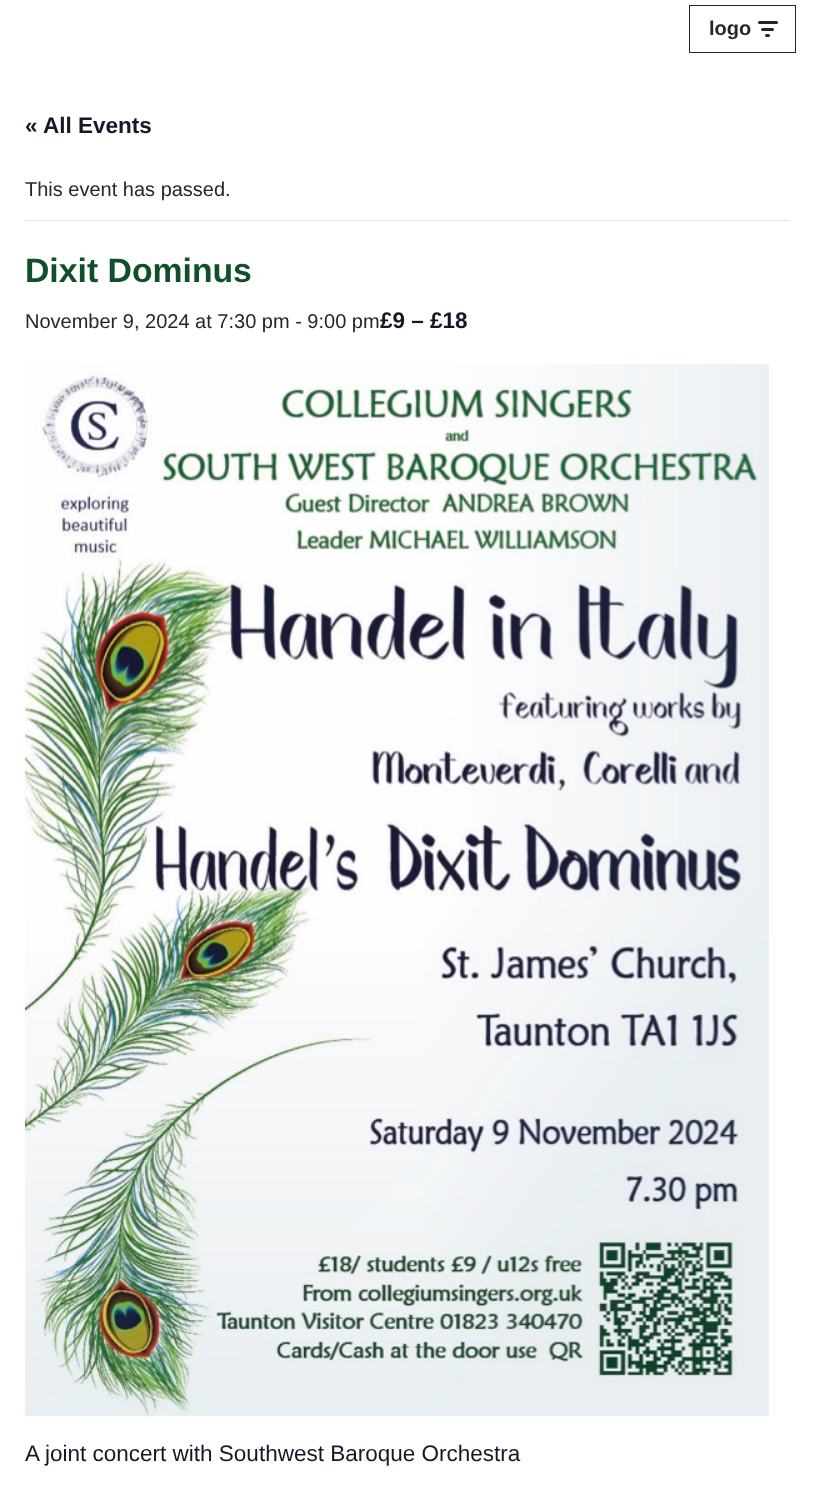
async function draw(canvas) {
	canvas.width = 815;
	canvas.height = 1491;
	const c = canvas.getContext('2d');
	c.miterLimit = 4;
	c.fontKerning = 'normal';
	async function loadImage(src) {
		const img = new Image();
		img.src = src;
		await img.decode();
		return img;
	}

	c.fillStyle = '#fff';
	c.fillRect(0, 0, 815, 1491);
	c.strokeStyle = '#272626';
	c.strokeRect(689.5, 5.5, 106, 47);
	c.font = 'bold 20px Liberation Sans';
	c.fillStyle = '#272626';
	c.fillText('logo', 709, 35);
	c.beginPath();
	c.roundRect(761, 28, 13, 3, 1.5);
	c.fill();
	c.beginPath();
	c.roundRect(758, 21, 20, 3, 1.5);
	c.fill();
	c.beginPath();
	c.roundRect(765, 34, 5, 3, 1.5);
	c.fill();
	c.font = 'bold 22.5px Liberation Sans';
	c.fillStyle = '#141827';
	c.fillText('« All Events', 25, 133);
	c.fillStyle = '#e4e4e4';
	c.fillRect(25, 220, 765, 1);
	c.font = '20px Liberation Sans';
	c.fillStyle = '#272626';
	c.fillText('This event has passed.', 25, 196);
	c.font = 'bold 33.75px Liberation Sans';
	c.fillStyle = '#0f4f29';
	c.fillText('Dixit Dominus', 25, 282);
	c.font = '20px Liberation Sans';
	c.fillStyle = '#272626';
	c.fillText('November 9, 2024 at 7:30 pm - 9:00 pm', 25, 328);
	c.font = 'bold 22.5px Liberation Sans';
	c.fillStyle = '#141827';
	c.fillText('£9 – £18', 380, 328);
	c.drawImage(await loadImage('img1.png'), 25, 364, 744, 1053);
	c.font = '22.5px Liberation Sans';
	c.fillText('A joint concert with Southwest Baroque Orchestra', 25, 1461);
}

draw(document.querySelector('canvas'));
